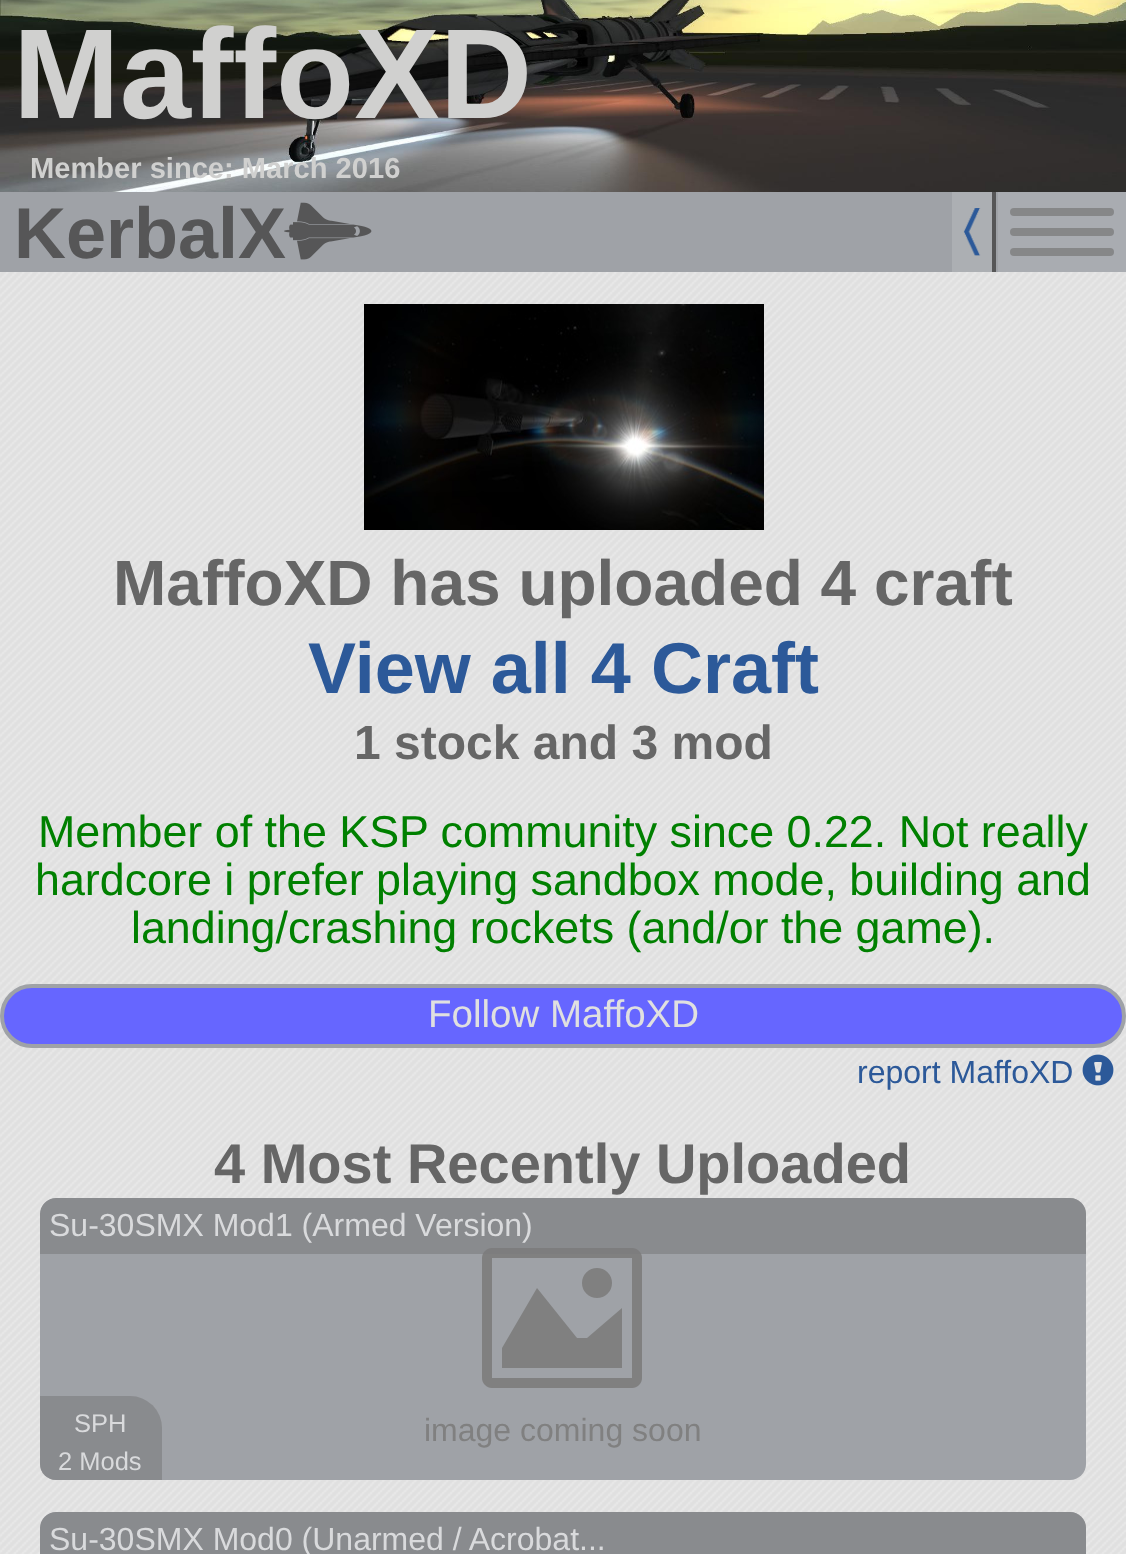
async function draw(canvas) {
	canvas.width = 1126;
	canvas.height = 1554;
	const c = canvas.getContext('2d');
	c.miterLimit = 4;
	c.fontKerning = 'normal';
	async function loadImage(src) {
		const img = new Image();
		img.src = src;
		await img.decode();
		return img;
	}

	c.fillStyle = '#fff';
	c.fillRect(0, 0, 1126, 1554);
	c.drawImage(await loadImage('img1.png'), 0, 272, 1126, 1282);
	c.drawImage(await loadImage('img2.png'), 0, 0, 1126, 192);
	c.font = 'bold 128px Liberation Sans';
	c.fillStyle = '#d0d0cf';
	c.fillText('MaffoXD', 13, 118);
	c.font = 'bold 29.1px Liberation Sans';
	c.fillText('Member since: March 2016', 30, 178);
	c.fillStyle = '#9fa2a7';
	c.fillRect(0, 192, 998, 80);
	c.font = 'bold 72px Liberation Sans';
	c.fillStyle = '#565657';
	c.fillText('KerbalX', 14, 258);
	c.drawImage(await loadImage('img3.png'), 284, 202, 88, 58);
	c.fillStyle = '#acafb3';
	c.fillRect(952, 192, 40, 80);
	c.fillStyle = '#565657';
	c.fillRect(992, 192, 4, 80);
	c.drawImage(await loadImage('img4.png'), 963, 208, 18, 48);
	c.fillStyle = '#a9acb1';
	c.fillRect(998, 192, 128, 80);
	c.fillStyle = '#868788';
	c.beginPath();
	c.roundRect(1010, 208, 104, 8, 4);
	c.fill();
	c.beginPath();
	c.roundRect(1010, 228, 104, 8, 4);
	c.fill();
	c.beginPath();
	c.roundRect(1010, 248, 104, 8, 4);
	c.fill();
	c.drawImage(await loadImage('img5.png'), 364, 304, 400, 226);
	c.font = 'bold 64px Liberation Sans';
	c.fillStyle = '#666';
	c.fillText('MaffoXD has uploaded 4 craft', 113, 605);
	c.font = 'bold 72px Liberation Sans';
	c.fillStyle = '#2c5999';
	c.fillText('View all 4 Craft', 308, 693);
	c.font = 'bold 48px Liberation Sans';
	c.fillStyle = '#666';
	c.fillText('1 stock and 3 mod', 354, 759);
	c.font = '44.8px Liberation Sans';
	c.fillStyle = '#008000';
	for (const [text, x, y] of [
		['Member of the KSP community since 0.22. Not really', 38, 847],
		['hardcore i prefer playing sandbox mode, building and', 35, 895],
		['landing/crashing rockets (and/or the game).', 131, 943],
	]) {
		c.fillText(text, x, y);
	}
	c.fillStyle = '#66f';
	c.beginPath();
	c.roundRect(2, 986, 1122, 60, 30);
	c.fill();
	c.strokeStyle = '#9fa2a7';
	c.lineWidth = 4;
	c.stroke();
	c.font = '38.5px Liberation Sans';
	c.fillStyle = '#e0e0e0';
	c.fillText('Follow MaffoXD', 428, 1027);
	c.font = '32px Liberation Sans';
	c.fillStyle = '#2c5999';
	c.fillText('report MaffoXD', 857, 1083);
	c.drawImage(await loadImage('img6.png'), 1082, 1054, 32, 32);
	c.font = 'bold 56px Liberation Sans';
	c.fillStyle = '#666';
	c.fillText('4 Most Recently Uploaded', 214, 1183);
	c.fillStyle = '#9fa2a7';
	c.beginPath();
	c.roundRect(40, 1198, 1046, 282, 16);
	c.fill();
	c.drawImage(await loadImage('img7.png'), 482, 1248, 160, 140);
	c.save();
	c.beginPath();
	c.roundRect(40, 1198, 1046, 282, 16);
	c.clip();
	c.fillStyle = '#7c7c7d99';
	c.beginPath();
	c.roundRect(40, 1198, 1060, 56, [16, 16, 0, 0]);
	c.fill();
	c.restore();
	c.font = '32px Liberation Sans';
	c.fillStyle = '#d9dadc';
	c.fillText('Su-30SMX Mod1 (Armed Version)', 49, 1236);
	c.fillStyle = '#7c7c7d99';
	c.beginPath();
	c.roundRect(40, 1396, 122, 84, [0, 32, 0, 16]);
	c.fill();
	c.font = '25.5px Liberation Sans';
	c.fillStyle = '#d9dadc';
	c.fillText('SPH', 74, 1432);
	c.fillText('2 Mods', 58, 1470);
	c.font = '32px Liberation Sans';
	c.fillStyle = '#808080';
	c.fillText('image coming soon', 424, 1441);
	c.fillStyle = '#9fa2a7';
	c.beginPath();
	c.roundRect(40, 1512, 1046, 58, 16);
	c.fill();
	c.save();
	c.beginPath();
	c.roundRect(40, 1512, 1046, 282, 16);
	c.clip();
	c.fillStyle = '#7c7c7d99';
	c.beginPath();
	c.moveTo(56, 1512);
	c.lineTo(1084, 1512);
	c.bezierCurveTo(1093, 1512, 1100, 1519, 1100, 1528);
	c.lineTo(1100, 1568);
	c.lineTo(40, 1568);
	c.lineTo(40, 1528);
	c.bezierCurveTo(40, 1519, 47, 1512, 56, 1512);
	c.closePath();
	c.fill();
	c.restore();
	c.fillStyle = '#d9dadc';
	c.fillText('Su-30SMX Mod0 (Unarmed / Acrobat...', 49, 1550);
}

draw(document.querySelector('canvas'));
